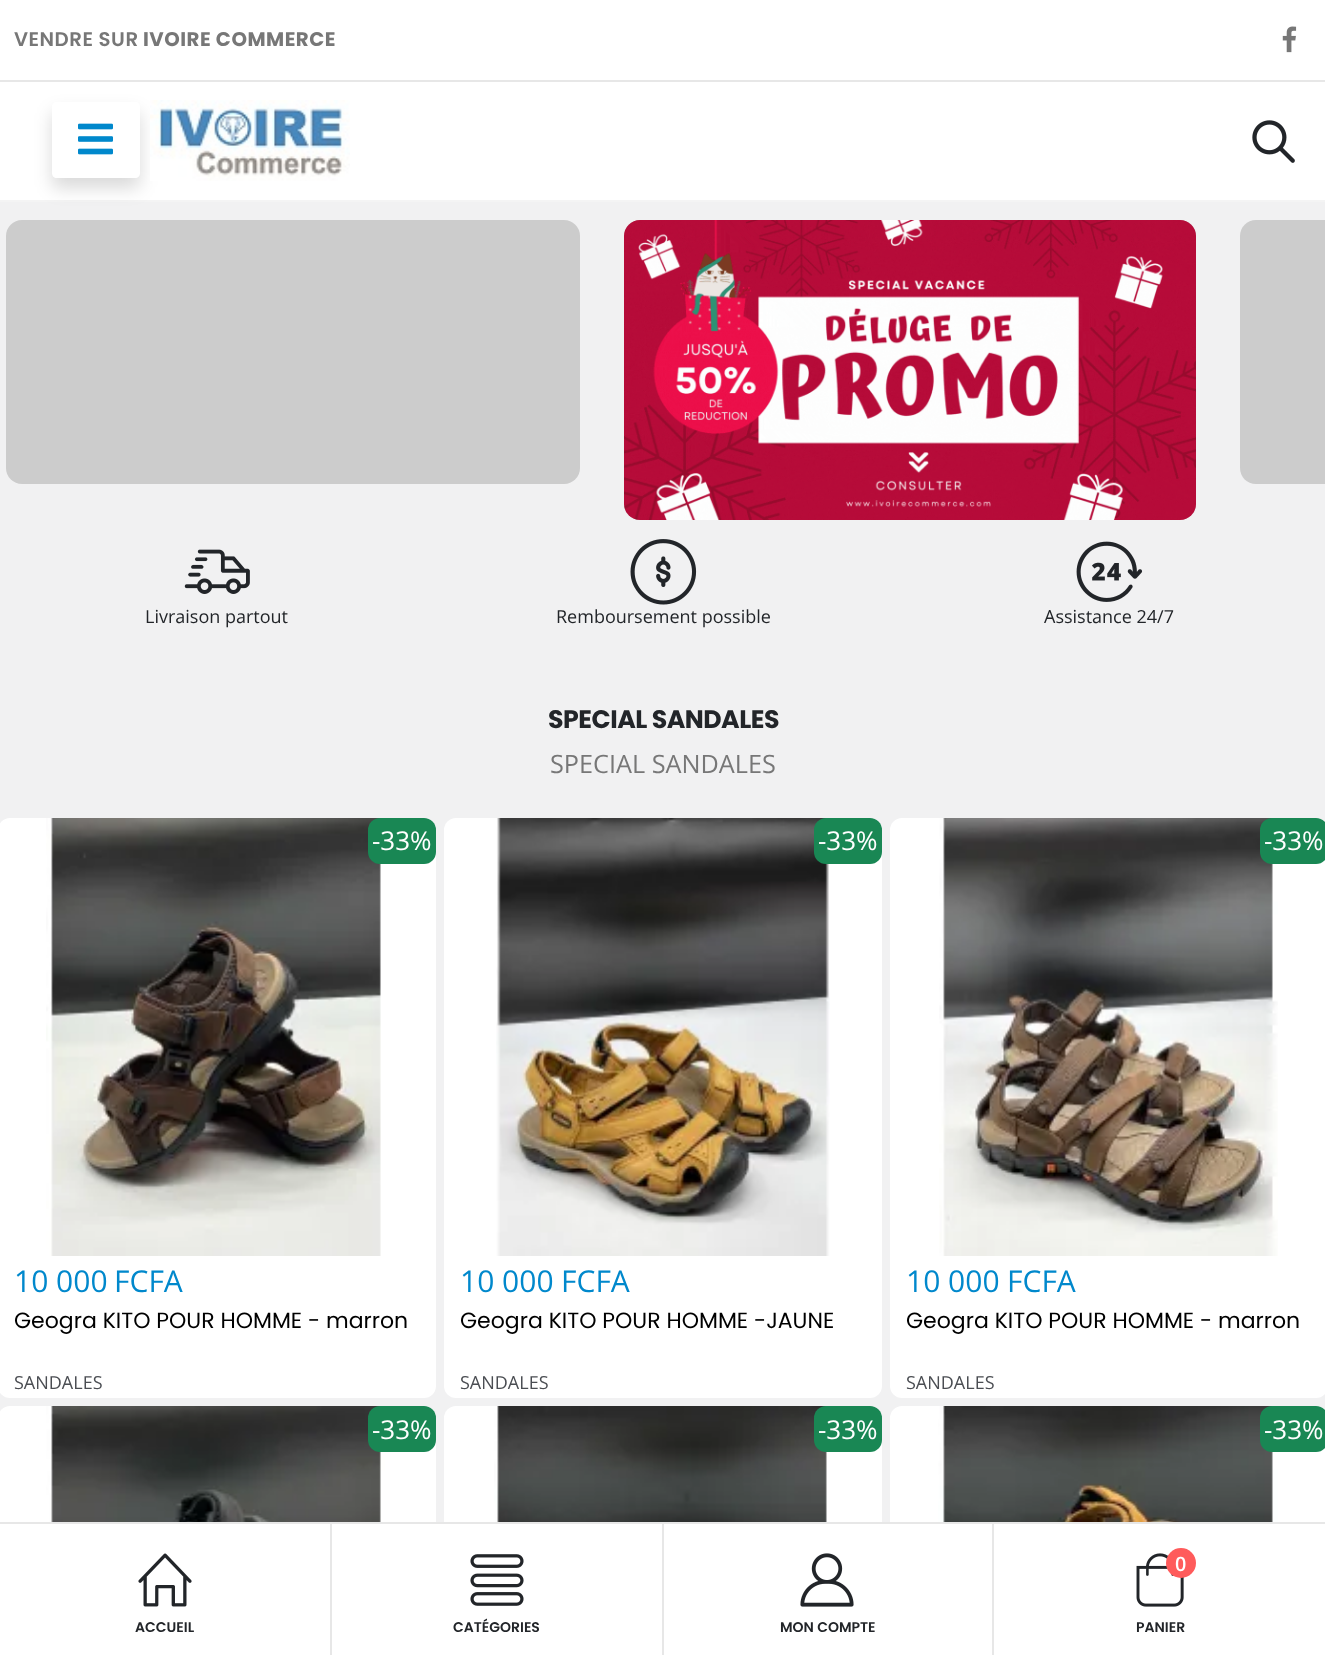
async function draw(canvas) {
	canvas.width = 1325;
	canvas.height = 1655;
	const c = canvas.getContext('2d');
	c.miterLimit = 4;
	c.fontKerning = 'normal';
	async function loadImage(src) {
		const img = new Image();
		img.src = src;
		await img.decode();
		return img;
	}

	c.fillStyle = '#f1f1f2';
	c.fillRect(0, 0, 1325, 1655);
	c.fillStyle = '#fff';
	c.fillRect(0, 0, 1325, 200);
	c.fillStyle = '#f4f4f4';
	c.fillRect(0, 200, 1325, 2);
	c.letterSpacing = '0.5px';
	c.font = '600 19.75px Poppins';
	c.fillStyle = '#777';
	c.fillText('VENDRE SUR', 14, 46);
	c.font = 'bold 19.75px Poppins';
	c.fillText('IVOIRE COMMERCE', 143, 46);
	c.drawImage(await loadImage('img1.png'), 1282, 26, 15, 27);
	c.fillStyle = '#e7e7e7';
	c.fillRect(0, 80, 1325, 2);
	c.save();
	c.beginPath();
	c.moveTo(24, 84);
	c.lineTo(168, 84);
	c.lineTo(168, 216);
	c.lineTo(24, 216);
	c.closePath();
	c.moveTo(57, 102);
	c.lineTo(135, 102);
	c.bezierCurveTo(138, 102, 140, 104, 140, 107);
	c.lineTo(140, 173);
	c.bezierCurveTo(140, 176, 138, 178, 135, 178);
	c.lineTo(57, 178);
	c.bezierCurveTo(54, 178, 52, 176, 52, 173);
	c.lineTo(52, 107);
	c.bezierCurveTo(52, 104, 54, 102, 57, 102);
	c.closePath();
	c.clip('evenodd');
	c.fillStyle = '#00000026';
	c.filter = 'blur(9px)';
	c.beginPath();
	c.roundRect(52, 112, 88, 76, 5);
	c.fill();
	c.filter = 'none';
	c.restore();
	c.drawImage(await loadImage('img2.png'), 78, 123, 35, 32);
	c.drawImage(await loadImage('img3.png'), 150, 100, 200, 81);
	c.drawImage(await loadImage('img4.png'), 1252, 120, 43, 43);
	c.fillStyle = '#ccc';
	c.beginPath();
	c.roundRect(6, 220, 574, 264, 16);
	c.fill();
	c.beginPath();
	c.roundRect(624, 220, 572, 300, 16);
	c.fill();
	c.drawImage(await loadImage('img5.png'), 624, 220, 572, 300);
	c.beginPath();
	c.moveTo(1256, 220);
	c.lineTo(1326, 220);
	c.lineTo(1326, 484);
	c.lineTo(1256, 484);
	c.bezierCurveTo(1247, 484, 1240, 477, 1240, 468);
	c.lineTo(1240, 236);
	c.bezierCurveTo(1240, 227, 1247, 220, 1256, 220);
	c.closePath();
	c.fill();
	c.drawImage(await loadImage('img6.png'), 184, 549, 66, 45);
	c.letterSpacing = '0px';
	c.font = '18px Open Sans';
	c.fillStyle = '#222529';
	c.fillText('Livraison partout', 145, 623);
	c.drawImage(await loadImage('img7.png'), 630, 539, 67, 66);
	c.fillText('Remboursement possible', 556, 623);
	c.drawImage(await loadImage('img8.png'), 1076, 541, 67, 61);
	c.fillText('Assistance 24/7', 1044, 623);
	c.letterSpacing = '-0.5px';
	c.font = 'bold 25.25px Poppins';
	c.fillText('SPECIAL SANDALES', 548, 728);
	c.letterSpacing = '0px';
	c.font = '25.25px Open Sans';
	c.fillStyle = '#777';
	c.fillText('SPECIAL SANDALES', 550, 773);
	c.fillStyle = '#fff';
	c.beginPath();
	c.roundRect(-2, 818, 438, 580, 12);
	c.fill();
	c.drawImage(await loadImage('img9.png'), 46, 818, 335, 438);
	c.fillStyle = '#198754';
	c.beginPath();
	c.roundRect(368, 818, 68, 46, 12);
	c.fill();
	c.font = '26px Open Sans';
	c.fillStyle = '#fff';
	c.fillText('-33%', 372, 850);
	c.font = '30px Open Sans';
	c.fillStyle = '#08c';
	c.fillText('10 000', 14, 1292);
	c.fillText('FCFA', 114, 1292);
	c.font = '22px Poppins';
	c.fillStyle = '#000';
	c.fillText('Geogra KITO POUR HOMME - marron', 14, 1328);
	c.font = '18px Open Sans';
	c.fillStyle = '#4a4d52';
	c.fillText('SANDALES', 14, 1389);
	c.fillStyle = '#fff';
	c.beginPath();
	c.roundRect(444, 818, 438, 580, 12);
	c.fill();
	c.drawImage(await loadImage('img10.png'), 496, 818, 334, 438);
	c.fillStyle = '#198754';
	c.beginPath();
	c.roundRect(814, 818, 68, 46, 12);
	c.fill();
	c.font = '26px Open Sans';
	c.fillStyle = '#fff';
	c.fillText('-33%', 818, 850);
	c.font = '30px Open Sans';
	c.fillStyle = '#08c';
	c.fillText('10 000', 460, 1292);
	c.fillText('FCFA', 561, 1292);
	c.font = '22px Poppins';
	c.fillStyle = '#000';
	c.fillText('Geogra KITO POUR HOMME -JAUNE', 460, 1328);
	c.font = '18px Open Sans';
	c.fillStyle = '#4a4d52';
	c.fillText('SANDALES', 460, 1389);
	c.fillStyle = '#fff';
	c.beginPath();
	c.roundRect(890, 818, 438, 580, 12);
	c.fill();
	c.drawImage(await loadImage('img11.png'), 939, 818, 339, 438);
	c.fillStyle = '#198754';
	c.beginPath();
	c.roundRect(1260, 818, 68, 46, 12);
	c.fill();
	c.font = '26px Open Sans';
	c.fillStyle = '#fff';
	c.fillText('-33%', 1264, 850);
	c.font = '30px Open Sans';
	c.fillStyle = '#08c';
	c.fillText('10 000', 906, 1292);
	c.fillText('FCFA', 1007, 1292);
	c.font = '22px Poppins';
	c.fillStyle = '#000';
	c.fillText('Geogra KITO POUR HOMME - marron', 906, 1328);
	c.font = '18px Open Sans';
	c.fillStyle = '#4a4d52';
	c.fillText('SANDALES', 906, 1389);
	c.fillStyle = '#fff';
	c.beginPath();
	c.roundRect(-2, 1406, 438, 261, 12);
	c.fill();
	c.drawImage(await loadImage('img12.png'), 46, 1406, 339, 116);
	c.fillStyle = '#198754';
	c.beginPath();
	c.roundRect(368, 1406, 68, 46, 12);
	c.fill();
	c.font = '26px Open Sans';
	c.fillStyle = '#fff';
	c.fillText('-33%', 372, 1439);
	c.beginPath();
	c.roundRect(444, 1406, 438, 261, 12);
	c.fill();
	c.drawImage(await loadImage('img13.png'), 494, 1406, 338, 116);
	c.fillStyle = '#198754';
	c.beginPath();
	c.roundRect(814, 1406, 68, 46, 12);
	c.fill();
	c.fillStyle = '#fff';
	c.fillText('-33%', 818, 1439);
	c.beginPath();
	c.roundRect(890, 1406, 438, 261, 12);
	c.fill();
	c.drawImage(await loadImage('img14.png'), 938, 1406, 340, 116);
	c.fillStyle = '#198754';
	c.beginPath();
	c.roundRect(1260, 1406, 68, 46, 12);
	c.fill();
	c.fillStyle = '#fff';
	c.fillText('-33%', 1264, 1439);
	for (const [x, y, w, h, color] of [
		[436, 1524, 454, 131, '#fff'],
		[0, 1522, 1325, 2, '#e7e7e7'],
		[330, 1524, 2, 131, '#e7e7e7'],
	]) {
		c.fillStyle = color;
		c.fillRect(x, y, w, h);
	}
	c.drawImage(await loadImage('img15.png'), 138, 1553, 54, 54);
	c.font = '600 14px Poppins';
	c.fillStyle = '#222529';
	c.fillText('ACCUEIL', 135, 1632);
	c.fillStyle = '#e7e7e7';
	c.fillRect(662, 1524, 2, 131);
	c.drawImage(await loadImage('img16.png'), 470, 1554, 54, 52);
	c.fillStyle = '#222529';
	c.fillText('CATÉGORIES', 453, 1632);
	c.fillStyle = '#e7e7e7';
	c.fillRect(992, 1524, 2, 131);
	c.drawImage(await loadImage('img17.png'), 800, 1553, 54, 54);
	c.fillStyle = '#222529';
	c.fillText('MON COMPTE', 780, 1632);
	c.drawImage(await loadImage('img18.png'), 1136, 1553, 48, 54);
	c.fillStyle = '#ff5b5b';
	c.beginPath();
	c.arc(1181, 1563, 15, 0, 2 * Math.PI);
	c.fill();
	c.font = '600 19.75px Open Sans';
	c.fillStyle = '#fff';
	c.fillText('0', 1175, 1571);
	c.font = '600 14px Poppins';
	c.fillStyle = '#222529';
	c.fillText('PANIER', 1136, 1632);
}

draw(document.querySelector('canvas'));
